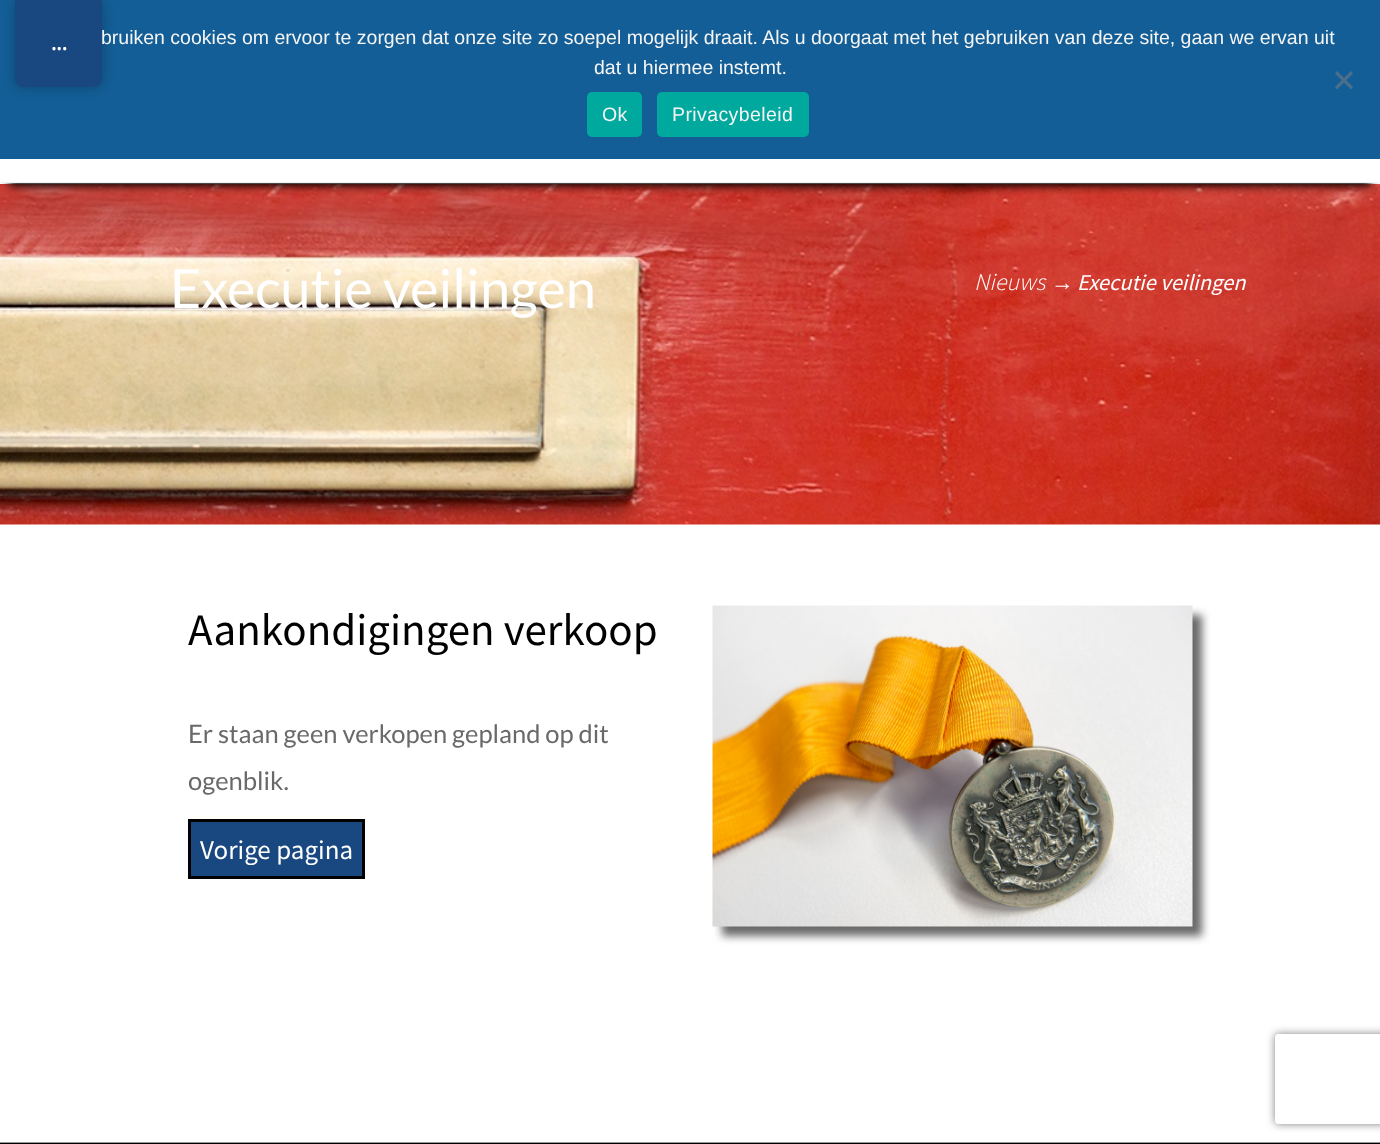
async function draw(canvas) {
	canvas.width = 1380;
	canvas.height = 1144;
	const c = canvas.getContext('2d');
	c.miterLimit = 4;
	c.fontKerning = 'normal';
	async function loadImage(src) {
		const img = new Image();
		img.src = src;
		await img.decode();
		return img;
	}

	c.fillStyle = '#fff';
	c.fillRect(0, 0, 1380, 1144);
	c.drawImage(await loadImage('img1.png'), 0, 184, 1380, 341);
	c.save();
	c.beginPath();
	c.rect(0, 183, 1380, 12);
	c.clip();
	c.fillStyle = '#000';
	c.filter = 'blur(4.5px)';
	c.beginPath();
	c.rect(9, 24, 1362, 162);
	c.fill();
	c.filter = 'none';
	c.restore();
	c.fillStyle = '#f0f0f0';
	c.beginPath();
	c.moveTo(1380, 183);
	c.lineTo(0, 183);
	c.lineTo(2, 182);
	c.lineTo(1378, 182);
	c.closePath();
	c.fill();
	c.fillStyle = '#135e96';
	c.fillRect(0, 0, 1380, 159);
	c.fillStyle = '#00000040';
	c.filter = 'blur(6px)';
	c.beginPath();
	c.roundRect(15, 0, 87, 87, 8);
	c.fill();
	c.filter = 'none';
	c.fillStyle = '#194880';
	c.beginPath();
	c.roundRect(15, 0, 87, 87, [0, 0, 8, 8]);
	c.fill();
	c.font = 'bold 20px Droid Sans';
	c.fillStyle = '#fff';
	c.fillText('...', 51, 50);
	c.font = '19.5px Liberation Sans';
	c.fillStyle = '#f5f5f5';
	c.fillText('bruiken cookies om ervoor te zorgen dat onze site zo soepel mogelijk draait. Als u doorgaat met het gebruiken van deze site, gaan we ervan uit', 101, 44);
	c.fillText('dat u hiermee instemt.', 594, 74);
	c.fillStyle = '#4a6f8b';
	c.beginPath();
	c.moveTo(1351, 71);
	c.lineTo(1353, 73.5);
	c.lineTo(1337, 89.5);
	c.lineTo(1335, 87);
	c.closePath();
	c.fill();
	c.beginPath();
	c.moveTo(1335, 73.5);
	c.lineTo(1337, 71);
	c.lineTo(1353, 87);
	c.lineTo(1351, 89.5);
	c.closePath();
	c.fill();
	c.fillStyle = '#00a99d';
	c.beginPath();
	c.roundRect(587, 92, 55, 45, 5);
	c.fill();
	c.letterSpacing = '0.4px';
	c.fillStyle = '#f5f5f5';
	c.fillText('Ok', 602, 121);
	c.fillStyle = '#00a99d';
	c.beginPath();
	c.roundRect(657, 92, 152, 45, 5);
	c.fill();
	c.fillStyle = '#f5f5f5';
	c.fillText('Privacybeleid', 672, 121);
	c.letterSpacing = '0px';
	c.font = '54px Lato';
	c.fillStyle = '#fff';
	c.fillText('Executie veilingen', 170, 308);
	c.font = 'italic 300 24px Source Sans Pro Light';
	c.fillText('Nieuws', 974, 290);
	c.font = 'italic 22.5px Liberation Serif';
	c.fillText('→', 1051, 290);
	c.font = 'italic 22.5px Source Sans Pro';
	c.fillText('Executie veilingen', 1077, 290);
	c.font = '45px Source Sans Pro';
	c.fillStyle = '#000';
	c.fillText('Aankondigingen verkoop', 188, 645);
	c.font = '25.5px Lato';
	c.fillStyle = '#696969';
	c.fillText('Er staan geen verkopen gepland op dit', 188, 743);
	c.fillText('ogenblik.', 188, 790);
	c.fillStyle = '#194880';
	c.beginPath();
	c.rect(189.5, 820.5, 174, 57);
	c.fill();
	c.strokeStyle = '#000';
	c.lineWidth = 3;
	c.stroke();
	c.font = '27px Source Sans Pro';
	c.fillStyle = '#fff';
	c.fillText('Vorige pagina', 200, 859);
	c.fillStyle = '#696969';
	c.filter = 'blur(4.5px)';
	c.beginPath();
	c.rect(722, 615, 480, 321);
	c.fill();
	c.filter = 'none';
	c.drawImage(await loadImage('img2.png'), 712, 605, 481, 322);
	c.save();
	c.beginPath();
	c.moveTo(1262, 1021);
	c.lineTo(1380, 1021);
	c.lineTo(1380, 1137);
	c.lineTo(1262, 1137);
	c.closePath();
	c.moveTo(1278, 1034);
	c.lineTo(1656, 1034);
	c.bezierCurveTo(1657.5, 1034, 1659, 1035.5, 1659, 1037);
	c.lineTo(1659, 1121);
	c.bezierCurveTo(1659, 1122.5, 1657.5, 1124, 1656, 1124);
	c.lineTo(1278, 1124);
	c.bezierCurveTo(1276.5, 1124, 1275, 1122.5, 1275, 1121);
	c.lineTo(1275, 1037);
	c.bezierCurveTo(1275, 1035.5, 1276.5, 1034, 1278, 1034);
	c.closePath();
	c.clip('evenodd');
	c.fillStyle = '#808080';
	c.filter = 'blur(4px)';
	c.beginPath();
	c.roundRect(1275, 1034, 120, 90, 3);
	c.fill();
	c.filter = 'none';
	c.restore();
	c.drawImage(await loadImage('img3.png'), 0, 1142, 1380, 1);
	c.save();
	c.beginPath();
	c.rect(0, 1143, 1380, 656);
	c.clip();
	c.fillStyle = '#000';
	c.beginPath();
	c.moveTo(-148, 994);
	c.lineTo(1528, 994);
	c.lineTo(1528, 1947);
	c.lineTo(-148, 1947);
	c.closePath();
	c.moveTo(9, 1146);
	c.lineTo(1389, 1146);
	c.bezierCurveTo(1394, 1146, 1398, 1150, 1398, 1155);
	c.lineTo(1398, 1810);
	c.bezierCurveTo(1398, 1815, 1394, 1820, 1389, 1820);
	c.lineTo(9, 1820);
	c.bezierCurveTo(4, 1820, 0, 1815, 0, 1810);
	c.lineTo(0, 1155);
	c.bezierCurveTo(0, 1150, 4, 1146, 9, 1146);
	c.closePath();
	c.fill('evenodd');
	c.restore();
}

draw(document.querySelector('canvas'));
